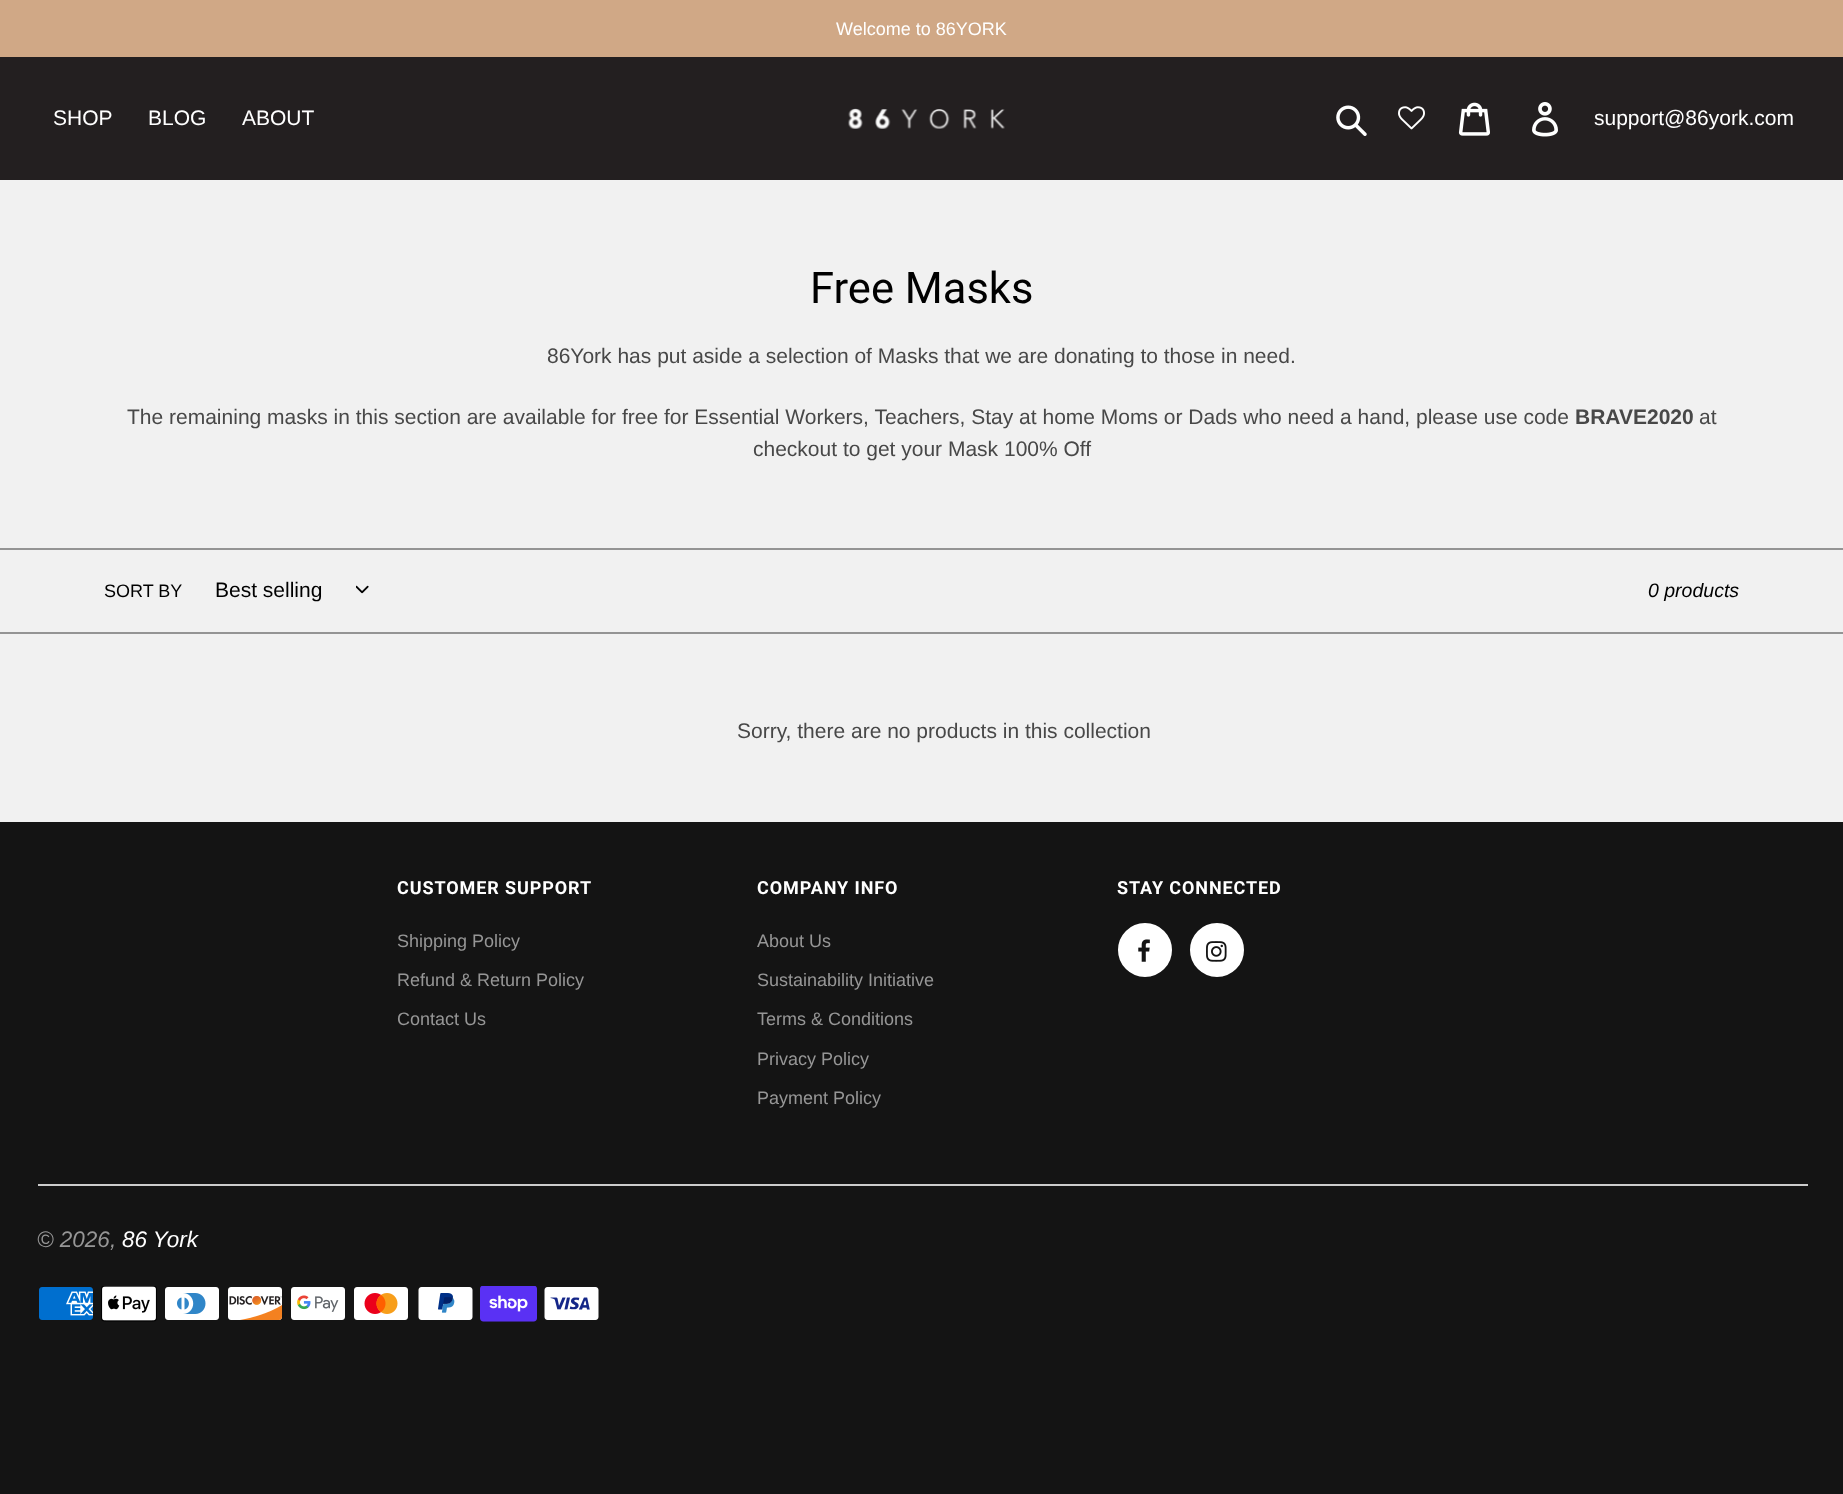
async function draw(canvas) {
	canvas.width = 1843;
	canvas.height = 1494;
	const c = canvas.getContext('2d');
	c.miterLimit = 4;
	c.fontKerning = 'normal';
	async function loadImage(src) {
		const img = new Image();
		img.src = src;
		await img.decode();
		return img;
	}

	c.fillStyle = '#f1f1f1';
	c.fillRect(0, 0, 1843, 1494);
	c.fillStyle = '#d0a886';
	c.fillRect(0, 0, 1843, 57);
	c.font = '18px Liberation Sans';
	c.fillStyle = '#fff';
	c.fillText('Welcome to 86YORK', 836, 35);
	c.fillStyle = '#231f20';
	c.fillRect(0, 57, 1843, 123);
	c.font = '21px Liberation Sans';
	c.fillStyle = '#fff';
	for (const [text, x, y] of [
		['SHOP', 53, 125],
		['BLOG', 148, 125],
		['ABOUT', 242, 125],
	]) {
		c.fillText(text, x, y);
	}
	c.drawImage(await loadImage('img1.png'), 848, 108, 157, 21);
	c.drawImage(await loadImage('img2.png'), 1336, 105, 31, 31);
	c.drawImage(await loadImage('img3.png'), 1398, 106, 27, 24);
	c.drawImage(await loadImage('img4.png'), 1458, 102, 32, 34);
	c.drawImage(await loadImage('img5.png'), 1532, 102, 26, 35);
	c.fillText('support@86york.com', 1594, 125);
	c.font = '43.5px Roboto';
	c.fillStyle = '#000';
	c.fillText('Free Masks', 810, 303);
	c.font = '21px Liberation Sans';
	c.fillStyle = '#484848';
	c.fillText('86York has put aside a selection of Masks that we are donating to those in need.', 547, 363);
	c.fillText('The remaining masks in this section are available for free for Essential Workers, Teachers, Stay at home Moms or Dads who need a hand, please use code', 127, 424);
	c.font = 'bold 21px Liberation Sans';
	c.fillText('BRAVE2020', 1575, 424);
	c.font = '21px Liberation Sans';
	c.fillText('at', 1699, 424);
	c.fillText('checkout to get your Mask 100% Off', 753, 456);
	c.fillStyle = '#949494';
	c.fillRect(0, 548, 1843, 2);
	c.fillRect(0, 632, 1843, 2);
	c.font = '18px Liberation Sans';
	c.fillStyle = '#000';
	c.fillText('SORT BY', 104, 597);
	c.font = '21px Liberation Sans';
	c.fillText('Best selling', 215, 597);
	c.drawImage(await loadImage('img6.png'), 356, 585, 13, 9);
	c.font = 'italic 19.5px Liberation Sans';
	c.fillText('0 products', 1648, 597);
	c.font = '21px Liberation Sans';
	c.fillStyle = '#484848';
	c.fillText('Sorry, there are no products in this collection', 737, 738);
	c.fillStyle = '#141414';
	c.fillRect(0, 822, 1843, 672);
	c.letterSpacing = '0.9px';
	c.font = 'bold 18px Roboto';
	c.fillStyle = '#fff';
	c.fillText('CUSTOMER SUPPORT', 397, 894);
	c.letterSpacing = '0px';
	c.font = '18px Liberation Sans';
	c.fillStyle = '#969696';
	for (const [text, x, y] of [
		['Shipping Policy', 397, 947],
		['Refund & Return Policy', 397, 986],
		['Contact Us', 397, 1025],
	]) {
		c.fillText(text, x, y);
	}
	c.letterSpacing = '0.9px';
	c.font = 'bold 18px Roboto';
	c.fillStyle = '#fff';
	c.fillText('COMPANY INFO', 757, 894);
	c.letterSpacing = '0px';
	c.font = '18px Liberation Sans';
	c.fillStyle = '#969696';
	for (const [text, x, y] of [
		['About Us', 757, 947],
		['Sustainability Initiative', 757, 986],
		['Terms & Conditions', 757, 1025],
		['Privacy Policy', 757, 1065],
		['Payment Policy', 757, 1104],
	]) {
		c.fillText(text, x, y);
	}
	c.letterSpacing = '0.9px';
	c.font = 'bold 18px Roboto';
	c.fillStyle = '#fff';
	c.fillText('STAY CONNECTED', 1117, 894);
	c.beginPath();
	c.arc(1145, 950, 26, 0, 2 * Math.PI);
	c.fill();
	c.strokeStyle = '#fff';
	c.lineWidth = 2;
	c.stroke();
	c.drawImage(await loadImage('img7.png'), 1138, 939, 12, 23);
	c.beginPath();
	c.arc(1217, 950, 26, 0, 2 * Math.PI);
	c.fill();
	c.stroke();
	c.drawImage(await loadImage('img8.png'), 1206, 941, 21, 21);
	c.fillStyle = '#ccc';
	c.fillRect(38, 1184, 1770, 2);
	c.letterSpacing = '0px';
	c.font = 'italic 22.5px Liberation Sans';
	c.fillStyle = '#969696';
	c.fillText('© 2026,', 37, 1247);
	c.fillStyle = '#fff';
	c.fillText('86 York', 122, 1247);
	c.drawImage(await loadImage('img9.png'), 39, 1287, 54, 33);
	c.drawImage(await loadImage('img10.png'), 101, 1286, 56, 36);
	c.drawImage(await loadImage('img11.png'), 165, 1287, 54, 33);
	c.drawImage(await loadImage('img12.png'), 228, 1287, 55, 33);
	c.drawImage(await loadImage('img13.png'), 291, 1287, 54, 33);
	c.drawImage(await loadImage('img14.png'), 354, 1287, 54, 33);
	c.drawImage(await loadImage('img15.png'), 418, 1287, 55, 33);
	c.drawImage(await loadImage('img16.png'), 480, 1286, 57, 36);
	c.drawImage(await loadImage('img17.png'), 544, 1287, 55, 33);
}

draw(document.querySelector('canvas'));
